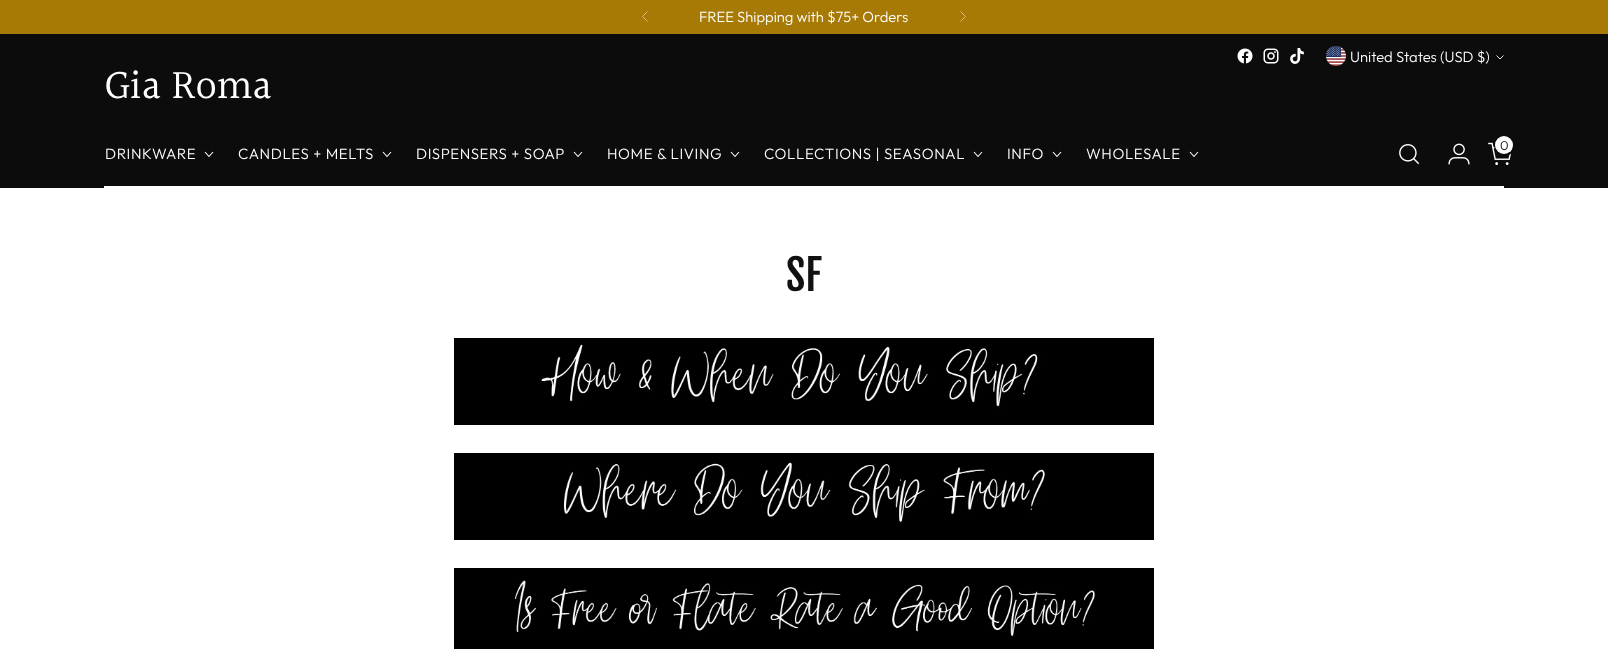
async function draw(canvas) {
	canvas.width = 1608;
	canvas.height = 649;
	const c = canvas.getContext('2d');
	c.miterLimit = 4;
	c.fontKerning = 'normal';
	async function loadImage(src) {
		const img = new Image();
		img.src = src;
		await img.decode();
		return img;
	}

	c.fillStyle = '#fff';
	c.fillRect(0, 0, 1608, 649);
	c.fillStyle = '#a77a06';
	c.fillRect(0, 0, 1608, 34);
	c.font = '300 14.75px Outfit';
	c.fillStyle = '#fff';
	c.fillText('FREE Shipping with $75+ Orders', 699, 22);
	c.beginPath();
	c.moveTo(647.5, 11.5);
	c.lineTo(642.5, 16.5);
	c.lineTo(647.5, 21.5);
	c.strokeStyle = '#d3bd83';
	c.stroke();
	c.beginPath();
	c.moveTo(960.5, 21.5);
	c.lineTo(965.5, 16.5);
	c.lineTo(960.5, 11.5);
	c.stroke();
	c.fillStyle = '#0d0c0c';
	c.fillRect(0, 34, 1608, 154);
	c.fillStyle = '#fff';
	c.fillRect(104, 186, 1400, 2);
	c.drawImage(await loadImage('img1.png'), 1237, 48, 16, 16);
	c.drawImage(await loadImage('img2.png'), 1263, 48, 16, 16);
	c.drawImage(await loadImage('img3.png'), 1290, 48, 14, 16);
	c.drawImage(await loadImage('img4.png'), 1326, 46, 20, 20);
	c.fillText('United States (USD $)', 1350, 62);
	c.beginPath();
	c.moveTo(1496.5, 55.5);
	c.lineTo(1500, 59);
	c.lineTo(1503.5, 55.5);
	c.strokeStyle = '#fff';
	c.lineWidth = 0.9;
	c.stroke();
	c.font = '42px Halant';
	c.fillText('Gia Roma', 104, 100);
	c.drawImage(await loadImage('img5.png'), 1399, 144, 21, 21);
	c.drawImage(await loadImage('img6.png'), 1448, 143, 22, 22);
	c.drawImage(await loadImage('img7.png'), 1488, 142, 25, 23);
	c.beginPath();
	c.arc(1504.5, 145.5, 9.5, 0, 2 * Math.PI);
	c.strokeStyle = '#0d0c0c';
	c.lineWidth = 2;
	c.stroke();
	c.beginPath();
	c.arc(1504, 145, 9, 0, 2 * Math.PI);
	c.fill();
	c.font = '300 13px Outfit';
	c.fillStyle = '#111';
	c.fillText('0', 1500, 150);
	c.letterSpacing = '0.6px';
	c.font = '300 15px Outfit';
	c.fillStyle = '#fff';
	c.fillText('DRINKWARE', 105, 159);
	c.beginPath();
	c.moveTo(205, 152);
	c.lineTo(209, 156.5);
	c.lineTo(213, 152);
	c.strokeStyle = '#fff';
	c.lineWidth = 1.1;
	c.stroke();
	c.fillText('CANDLES + MELTS', 238, 159);
	c.beginPath();
	c.moveTo(383, 152);
	c.lineTo(387, 156.5);
	c.lineTo(391, 152);
	c.stroke();
	c.fillText('DISPENSERS + SOAP', 416, 159);
	c.beginPath();
	c.moveTo(574, 152);
	c.lineTo(578, 156.5);
	c.lineTo(582, 152);
	c.stroke();
	c.fillText('HOME & LIVING', 607, 159);
	c.beginPath();
	c.moveTo(731, 152);
	c.lineTo(735, 156.5);
	c.lineTo(739, 152);
	c.stroke();
	c.fillText('COLLECTIONS | SEASONAL', 764, 159);
	c.beginPath();
	c.moveTo(974, 152);
	c.lineTo(978, 156.5);
	c.lineTo(982, 152);
	c.stroke();
	c.fillText('INFO', 1007, 159);
	c.beginPath();
	c.moveTo(1053, 152);
	c.lineTo(1057, 156.5);
	c.lineTo(1061, 152);
	c.stroke();
	c.fillText('WHOLESALE', 1086, 159);
	c.beginPath();
	c.moveTo(1190, 152);
	c.lineTo(1194, 156.5);
	c.lineTo(1198, 152);
	c.stroke();
	c.letterSpacing = '0px';
	c.font = '42px Fjalla One';
	c.fillStyle = '#111';
	c.fillText('SF', 786, 291);
	c.drawImage(await loadImage('img8.png'), 454, 338, 700, 87);
	c.drawImage(await loadImage('img9.png'), 454, 453, 700, 87);
	c.drawImage(await loadImage('img10.png'), 454, 568, 700, 81);
}

draw(document.querySelector('canvas'));
